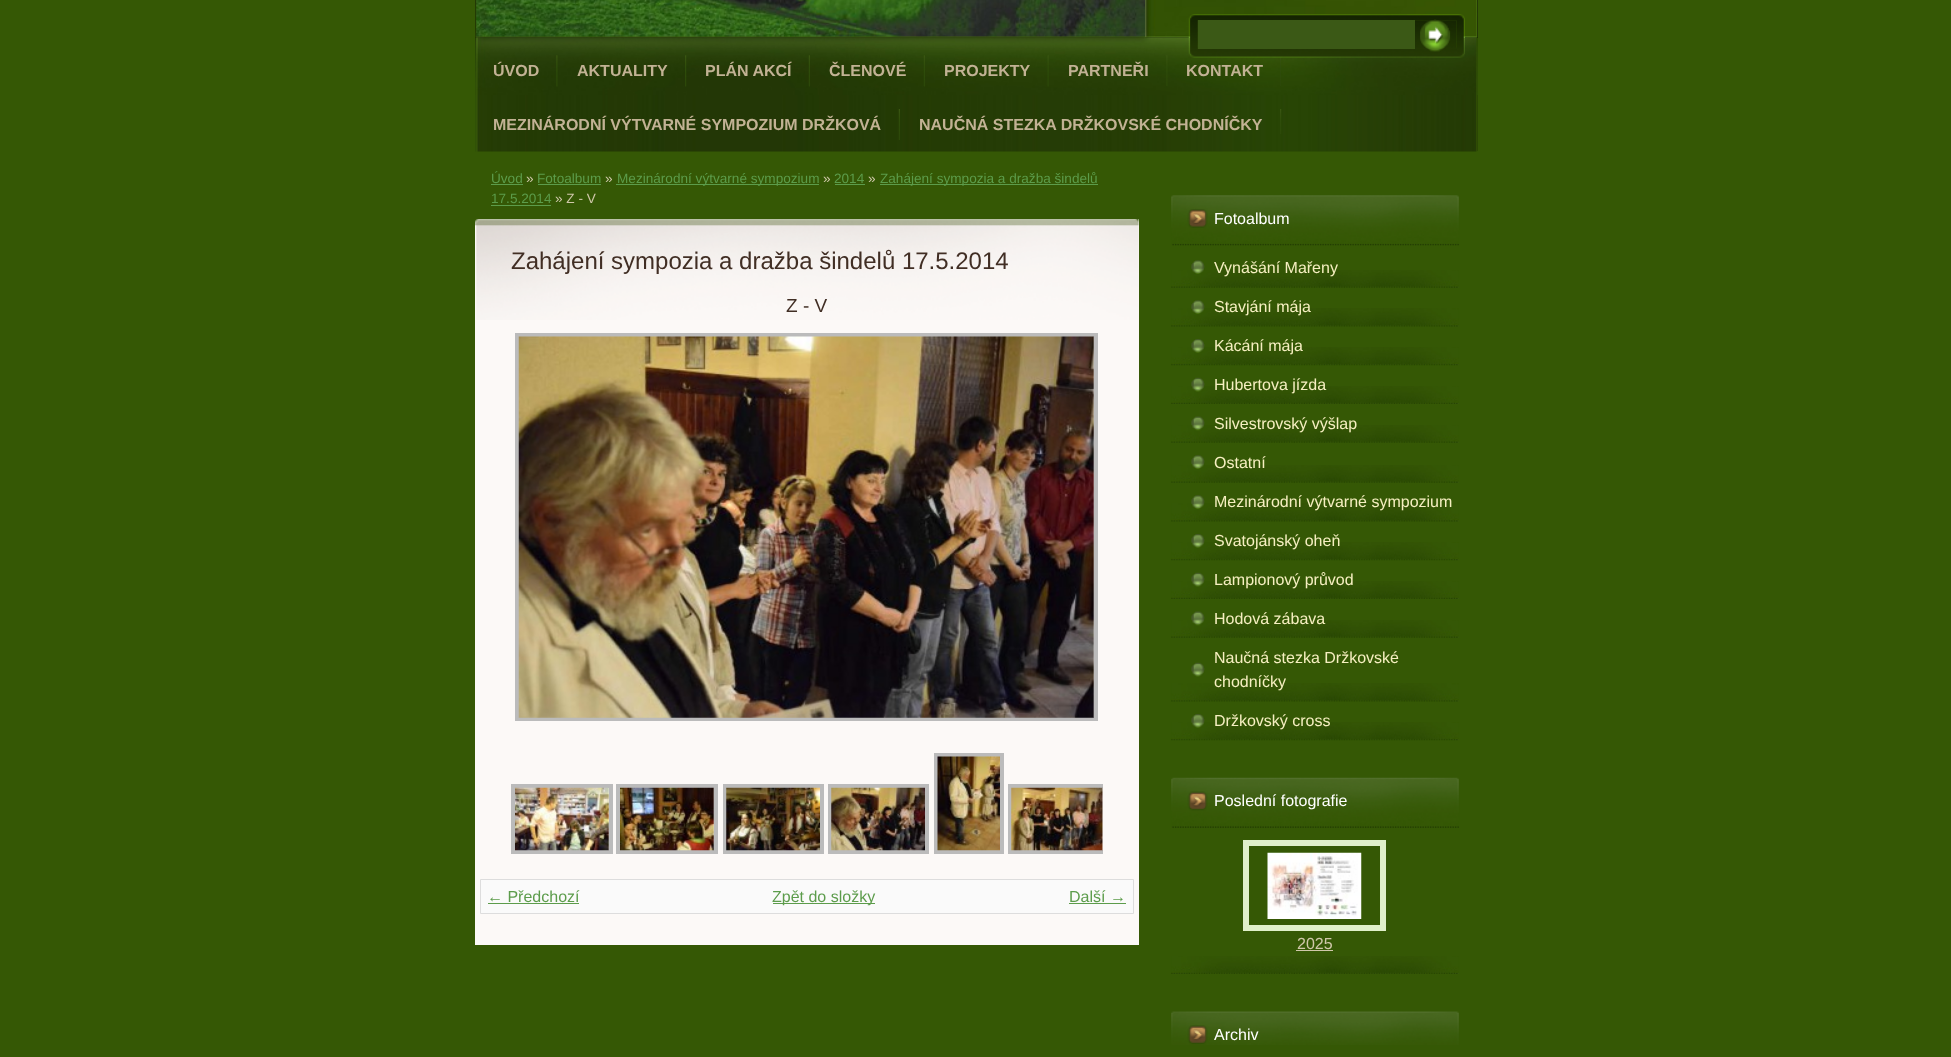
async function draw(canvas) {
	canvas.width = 1951;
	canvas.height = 1057;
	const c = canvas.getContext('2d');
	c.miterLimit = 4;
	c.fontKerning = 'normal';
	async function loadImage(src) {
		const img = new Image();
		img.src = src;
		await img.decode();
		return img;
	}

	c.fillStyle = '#355805';
	c.fillRect(0, 0, 1951, 1057);
	c.fillStyle = '#000';
	c.fillRect(475, 0, 1003, 38);
	c.drawImage(await loadImage('img1.png'), 475, 0, 1003, 38);
	c.drawImage(await loadImage('img2.png'), 476, 0, 669, 37);
	c.fillStyle = '#253c05';
	c.fillRect(1477, 38, 1, 113);
	c.drawImage(await loadImage('img3.png'), 475, 37, 1003, 115);
	c.drawImage(await loadImage('img4.png'), 475, 37, 1003, 58);
	c.drawImage(await loadImage('img5.png'), 556, 55, 2, 32);
	c.font = 'bold 16px Liberation Sans';
	c.fillStyle = '#c2b294';
	c.fillText('ÚVOD', 493, 76);
	c.drawImage(await loadImage('img6.png'), 685, 55, 2, 32);
	c.fillText('AKTUALITY', 577, 76);
	c.drawImage(await loadImage('img7.png'), 808, 55, 2, 32);
	c.fillText('PLÁN AKCÍ', 705, 76);
	c.drawImage(await loadImage('img8.png'), 923, 55, 2, 32);
	c.fillText('ČLENOVÉ', 829, 76);
	c.drawImage(await loadImage('img9.png'), 1047, 55, 2, 32);
	c.fillText('PROJEKTY', 944, 76);
	c.drawImage(await loadImage('img10.png'), 1166, 55, 2, 31);
	c.fillText('PARTNEŘI', 1068, 76);
	c.drawImage(await loadImage('img11.png'), 1280, 57, 1, 29);
	c.fillText('KONTAKT', 1186, 76);
	c.drawImage(await loadImage('img12.png'), 898, 109, 2, 31);
	c.fillText('MEZINÁRODNÍ VÝTVARNÉ SYMPOZIUM DRŽKOVÁ', 493, 130);
	c.drawImage(await loadImage('img13.png'), 1280, 109, 2, 25);
	c.fillText('NAUČNÁ STEZKA DRŽKOVSKÉ CHODNÍČKY', 919, 130);
	c.font = '13.6px Liberation Sans';
	c.fillStyle = '#5c9c4b';
	c.fillText('Úvod', 491, 183);
	c.fillRect(491, 184, 32, 1);
	c.fillStyle = '#d0c8aa';
	c.fillText('»', 526, 183);
	c.fillStyle = '#5c9c4b';
	c.fillText('Fotoalbum', 537, 183);
	c.fillRect(538, 184, 63, 1);
	c.fillStyle = '#d0c8aa';
	c.fillText('»', 605, 183);
	c.fillStyle = '#5c9c4b';
	c.fillRect(616, 184, 203, 1);
	c.fillText('Mezinárodní výtvarné sympozium', 617, 183);
	c.fillStyle = '#d0c8aa';
	c.fillText('»', 823, 183);
	c.fillStyle = '#5c9c4b';
	c.fillText('2014', 834, 183);
	c.fillRect(835, 184, 30, 1);
	c.fillStyle = '#d0c8aa';
	c.fillText('»', 868, 183);
	c.fillStyle = '#5c9c4b';
	c.fillRect(880, 184, 218, 1);
	c.fillText('Zahájení sympozia a dražba šindelů', 880, 183);
	c.fillText('17.5.2014', 491, 203);
	c.fillRect(491, 205, 60, 1);
	c.fillStyle = '#d0c8aa';
	c.fillText('» Z - V', 555, 203);
	c.fillStyle = '#fcf9f7';
	c.fillRect(475, 219, 664, 726);
	c.drawImage(await loadImage('img14.png'), 475, 219, 664, 101);
	c.font = '24px Liberation Sans';
	c.fillStyle = '#412e24';
	c.fillText('Zahájení sympozia a dražba šindelů 17.5.2014', 511, 269);
	c.font = '19px Liberation Sans';
	c.fillText('Z - V', 786, 312);
	c.strokeStyle = '#bbb';
	c.lineWidth = 4;
	c.strokeRect(517, 335, 579, 384);
	c.drawImage(await loadImage('img15.png'), 518, 336, 576, 382);
	c.strokeRect(936, 755, 66, 97);
	c.strokeRect(513, 786, 98, 66);
	c.strokeRect(618, 786, 98, 66);
	c.strokeRect(725, 786, 97, 66);
	c.strokeRect(830, 786, 97, 66);
	c.drawImage(await loadImage('img16.png'), 937, 756, 63, 95);
	c.save();
	c.beginPath();
	c.rect(511, 753, 592, 107);
	c.clip();
	c.strokeRect(1010, 786, 97, 66);
	c.restore();
	c.drawImage(await loadImage('img17.png'), 515, 787, 94, 64);
	c.drawImage(await loadImage('img18.png'), 620, 787, 94, 64);
	c.drawImage(await loadImage('img19.png'), 726, 787, 94, 64);
	c.drawImage(await loadImage('img20.png'), 831, 787, 94, 64);
	c.drawImage(await loadImage('img21.png'), 1011, 787, 92, 64);
	c.fillStyle = '#fafafa';
	c.beginPath();
	c.rect(480.5, 879.5, 653, 34);
	c.fill();
	c.strokeStyle = '#ddd';
	c.lineWidth = 1;
	c.stroke();
	c.font = '16px Liberation Sans';
	c.fillStyle = '#5c9c4b';
	c.fillText('← Předchozí', 487, 902);
	c.fillRect(488, 903, 91, 1);
	c.fillRect(773, 903, 102, 1);
	c.fillText('Zpět do složky', 772, 902);
	c.fillText('Další →', 1069, 902);
	c.fillRect(1069, 903, 57, 1);
	c.drawImage(await loadImage('img22.png'), 1188, 14, 277, 44);
	c.drawImage(await loadImage('img23.png'), 1197, 20, 260, 29);
	c.drawImage(await loadImage('img24.png'), 1197, 20, 259, 29);
	c.fillStyle = '#3b5916';
	c.fillRect(1198, 20, 217, 29);
	c.drawImage(await loadImage('img25.png'), 1420, 19, 31, 33);
	c.drawImage(await loadImage('img26.png'), 1171, 195, 288, 51);
	c.fillStyle = '#fff';
	c.fillText('Fotoalbum', 1214, 224);
	c.drawImage(await loadImage('img27.png'), 1171, 722, 288, 19);
	c.drawImage(await loadImage('img28.png'), 1171, 270, 288, 18);
	c.drawImage(await loadImage('img29.png'), 1191, 260, 14, 14);
	c.fillStyle = '#f6efc1';
	c.fillText('Vynášání Mařeny', 1214, 273);
	c.drawImage(await loadImage('img30.png'), 1171, 308, 288, 19);
	c.drawImage(await loadImage('img31.png'), 1191, 300, 14, 14);
	c.fillText('Stavjání mája', 1214, 312);
	c.drawImage(await loadImage('img27.png'), 1171, 347, 288, 19);
	c.drawImage(await loadImage('img32.png'), 1191, 339, 14, 14);
	c.fillText('Kácání mája', 1214, 351);
	c.drawImage(await loadImage('img33.png'), 1171, 386, 288, 18);
	c.drawImage(await loadImage('img34.png'), 1191, 377, 14, 15);
	c.fillText('Hubertova jízda', 1214, 390);
	c.drawImage(await loadImage('img28.png'), 1171, 425, 288, 18);
	c.drawImage(await loadImage('img35.png'), 1191, 416, 14, 15);
	c.fillText('Silvestrovský výšlap', 1214, 429);
	c.drawImage(await loadImage('img28.png'), 1171, 465, 288, 18);
	c.drawImage(await loadImage('img29.png'), 1191, 455, 14, 14);
	c.fillText('Ostatní', 1214, 468);
	c.drawImage(await loadImage('img30.png'), 1171, 503, 288, 19);
	c.drawImage(await loadImage('img31.png'), 1191, 495, 14, 14);
	c.fillText('Mezinárodní výtvarné sympozium', 1214, 507);
	c.drawImage(await loadImage('img27.png'), 1171, 542, 288, 19);
	c.drawImage(await loadImage('img32.png'), 1191, 534, 14, 14);
	c.fillText('Svatojánský oheň', 1214, 546);
	c.drawImage(await loadImage('img33.png'), 1171, 581, 288, 18);
	c.drawImage(await loadImage('img34.png'), 1191, 572, 14, 15);
	c.fillText('Lampionový průvod', 1214, 585);
	c.drawImage(await loadImage('img28.png'), 1171, 620, 288, 18);
	c.drawImage(await loadImage('img35.png'), 1191, 611, 14, 15);
	c.fillText('Hodová zábava', 1214, 624);
	c.drawImage(await loadImage('img30.png'), 1171, 683, 288, 19);
	c.drawImage(await loadImage('img36.png'), 1191, 662, 14, 15);
	c.fillText('Naučná stezka Držkovské', 1214, 663);
	c.fillText('chodníčky', 1214, 687);
	c.drawImage(await loadImage('img32.png'), 1191, 714, 14, 14);
	c.fillText('Držkovský cross', 1214, 726);
	c.drawImage(await loadImage('img37.png'), 1171, 777, 288, 51);
	c.fillStyle = '#fff';
	c.fillText('Poslední fotografie', 1214, 806);
	c.drawImage(await loadImage('img38.png'), 1171, 956, 288, 18);
	c.strokeStyle = '#e0efca';
	c.lineWidth = 6;
	c.strokeRect(1246, 843, 137, 85);
	c.drawImage(await loadImage('img39.png'), 1267, 852, 95, 67);
	c.fillStyle = '#d0c8aa';
	c.fillText('2025', 1297, 949);
	c.fillRect(1296, 950, 37, 1);
	c.drawImage(await loadImage('img40.png'), 1171, 1011, 288, 34);
	c.fillStyle = '#fff';
	c.fillText('Archiv', 1214, 1040);
}

draw(document.querySelector('canvas'));
